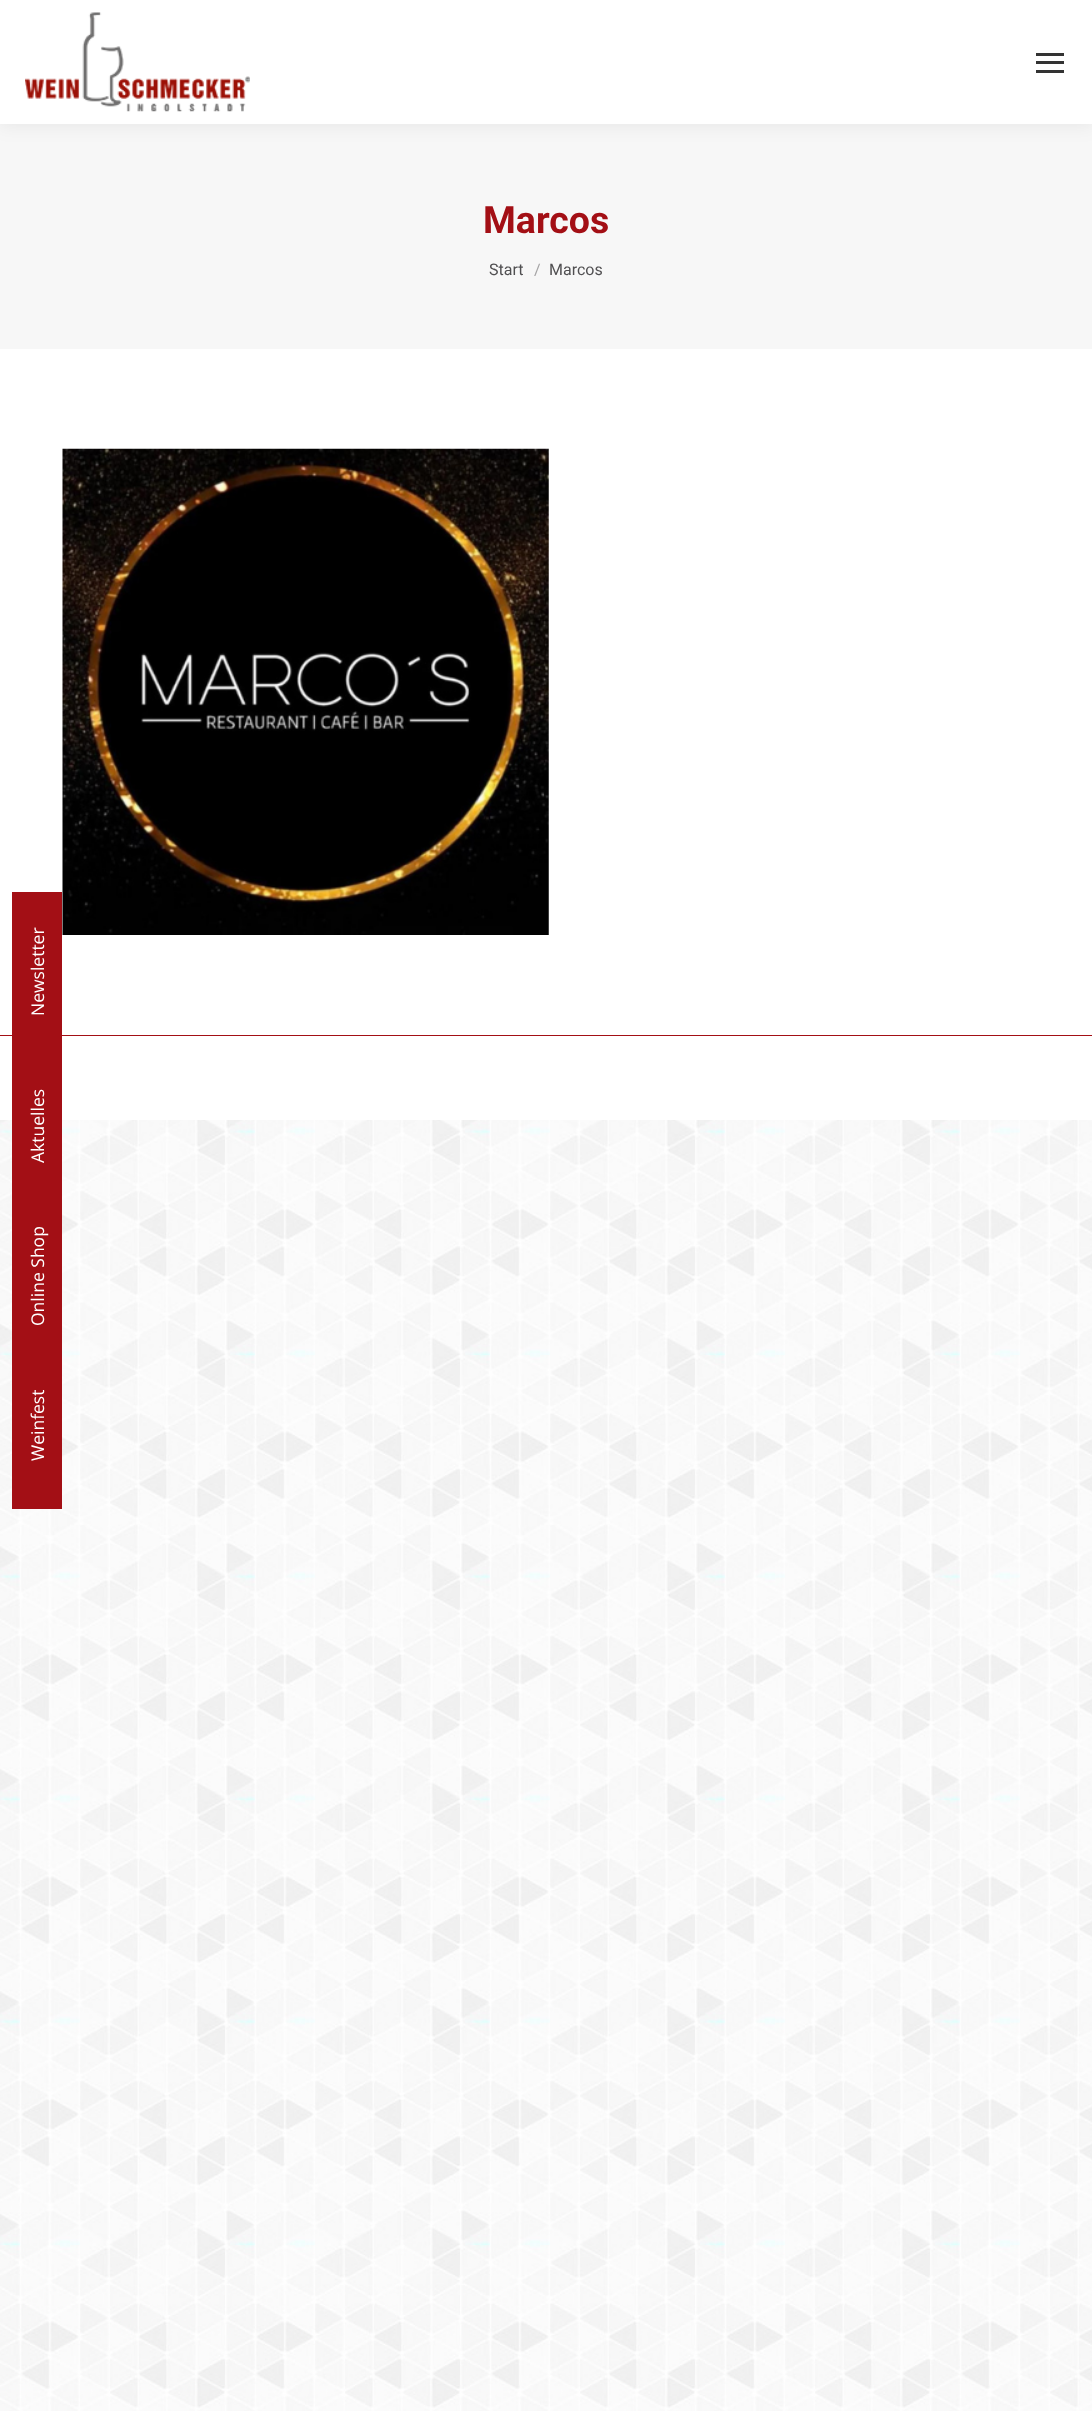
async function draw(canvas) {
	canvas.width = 1092;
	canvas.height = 2411;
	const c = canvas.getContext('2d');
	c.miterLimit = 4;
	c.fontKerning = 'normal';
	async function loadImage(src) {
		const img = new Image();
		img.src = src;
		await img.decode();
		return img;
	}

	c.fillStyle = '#fff';
	c.fillRect(0, 0, 1092, 2411);
	c.drawImage(await loadImage('img1.png'), 0, 1120, 1092, 1291);
	c.fillStyle = '#f7f7f7';
	c.fillRect(0, 124, 1092, 225);
	c.fillStyle = '#00000012';
	c.filter = 'blur(9.5px)';
	c.beginPath();
	c.rect(-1, -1, 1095, 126);
	c.fill();
	c.filter = 'none';
	c.fillStyle = '#fff';
	c.fillRect(0, 0, 1092, 124);
	c.drawImage(await loadImage('img2.png'), 25, 12, 225, 100);
	for (const [x, y, w, h, color] of [
		[1036, 53, 28, 3, '#333'],
		[1036, 61, 28, 3, '#333'],
		[1036, 70, 28, 3, '#333'],
	]) {
		c.fillStyle = color;
		c.fillRect(x, y, w, h);
	}
	c.font = 'bold 37.5px Roboto';
	c.fillStyle = '#a30f15';
	c.fillText('Marcos', 483, 233);
	c.font = '16px Roboto';
	c.fillStyle = '#504f51';
	c.fillText('Start', 489, 275);
	c.fillStyle = '#a4a3a4';
	c.fillText('/', 534, 275);
	c.fillStyle = '#504f51';
	c.fillText('Marcos', 549, 275);
	c.drawImage(await loadImage('img3.png'), 62, 448, 487, 487);
	c.fillStyle = '#a30f15';
	c.fillRect(0, 1035, 1092, 1);
	c.fillRect(12, 892, 50, 617);
	c.font = '17.5px Open Sans';
	c.fillStyle = '#fff';
	c.save();
	c.translate(44, 1016);
	c.rotate(-90 * Math.PI / 180);
	c.fillText('Newsletter', 0, 0);
	c.restore();
	c.save();
	c.translate(44, 1163);
	c.rotate(-90 * Math.PI / 180);
	c.fillText('Aktuelles', 0, 0);
	c.restore();
	c.save();
	c.translate(44, 1326);
	c.rotate(-90 * Math.PI / 180);
	c.fillText('Online Shop', 0, 0);
	c.restore();
	c.save();
	c.translate(44, 1461);
	c.rotate(-90 * Math.PI / 180);
	c.fillText('Weinfest', 0, 0);
	c.restore();
}

draw(document.querySelector('canvas'));
